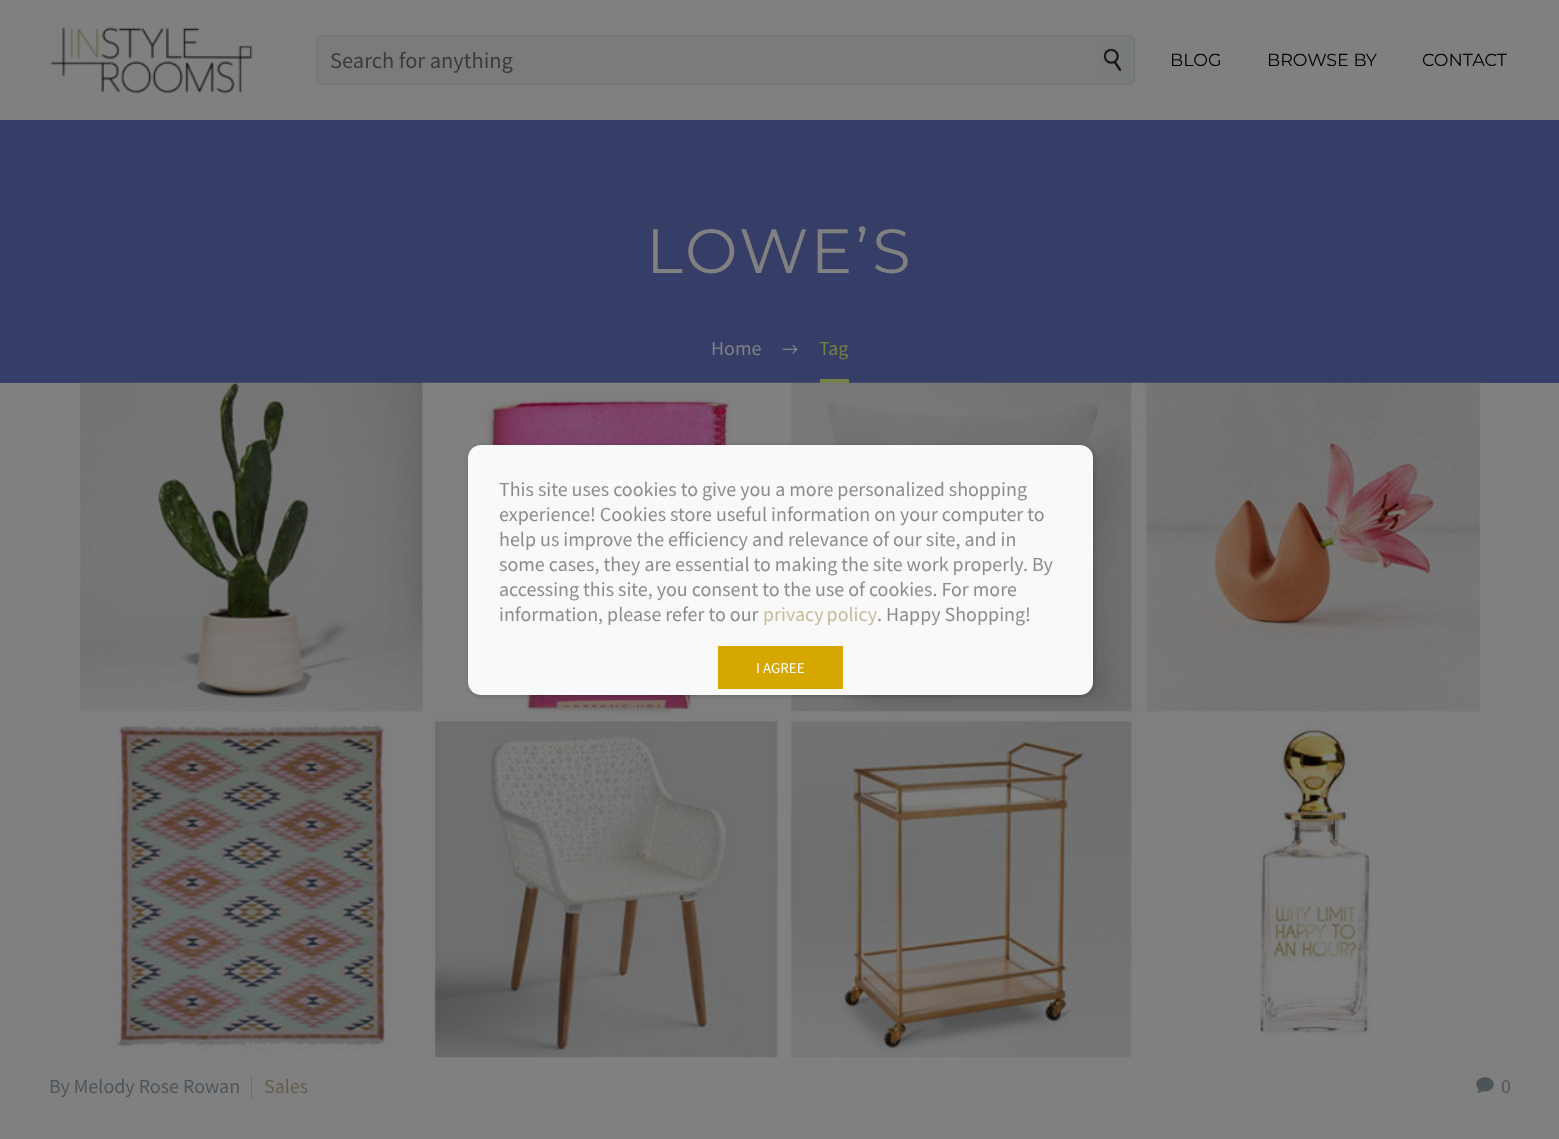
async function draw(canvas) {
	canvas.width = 1559;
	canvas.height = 1139;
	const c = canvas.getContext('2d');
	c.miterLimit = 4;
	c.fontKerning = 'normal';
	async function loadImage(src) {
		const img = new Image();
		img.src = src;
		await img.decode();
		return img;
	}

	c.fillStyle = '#808080';
	c.fillRect(0, 0, 1559, 1139);
	c.drawImage(await loadImage('img1.png'), 51, 27, 202, 67);
	c.fillStyle = '#7a7b7c';
	c.beginPath();
	c.roundRect(316.5, 35.5, 793, 49, [5.5, 0, 0, 5.5]);
	c.fill();
	c.strokeStyle = '#707374';
	c.stroke();
	c.font = '22.5px Source Sans Pro';
	c.fillStyle = '#3b3b3b';
	c.fillText('Search for anything', 330, 68);
	c.fillStyle = '#797a7b';
	c.beginPath();
	c.roundRect(1098, 35, 37, 50, [0, 6, 6, 0]);
	c.fill();
	c.fillStyle = '#707374';
	c.beginPath();
	c.moveTo(1098, 35);
	c.lineTo(1129, 35);
	c.bezierCurveTo(1132, 35, 1135, 38, 1135, 41);
	c.lineTo(1135, 79);
	c.bezierCurveTo(1135, 82, 1132, 85, 1129, 85);
	c.lineTo(1098, 85);
	c.closePath();
	c.moveTo(1098, 36);
	c.lineTo(1129, 36);
	c.bezierCurveTo(1132, 36, 1134, 38, 1134, 41);
	c.lineTo(1134, 79);
	c.bezierCurveTo(1134, 82, 1132, 84, 1129, 84);
	c.lineTo(1098, 84);
	c.closePath();
	c.fill('evenodd');
	c.drawImage(await loadImage('img2.png'), 1103, 48, 19, 24);
	c.font = '100 17.5px Montserrat';
	c.fillStyle = '#000';
	for (const [text, x, y] of [
		['BLOG', 1170, 66],
		['BROWSE BY', 1267, 66],
		['CONTACT', 1422, 66],
	]) {
		c.fillText(text, x, y);
	}
	c.fillStyle = '#363e68';
	c.fillRect(0, 120, 1559, 263);
	c.letterSpacing = '3px';
	c.font = '100 62.5px Montserrat';
	c.fillStyle = '#808080';
	c.fillText('LOWE’S', 646, 273);
	c.letterSpacing = '0px';
	c.font = '20px Source Sans Pro';
	c.fillText('Home', 711, 355);
	c.drawImage(await loadImage('img3.png'), 782, 345, 16, 9);
	c.fillStyle = '#748045';
	c.fillRect(820, 379, 29, 4);
	c.fillText('Tag', 819, 355);
	c.drawImage(await loadImage('img4.png'), 80, 382, 1402, 676);
	c.fillStyle = '#4d555b';
	c.fillText('By Melody Rose Rowan', 49, 1093);
	c.fillStyle = '#6a6f71';
	c.fillRect(251, 1075, 1, 25);
	c.fillStyle = '#655d4e';
	c.fillText('Sales', 264, 1093);
	c.drawImage(await loadImage('img5.png'), 1476, 1077, 18, 16);
	c.fillStyle = '#4d555b';
	c.fillText('0', 1501, 1093);
	c.fillStyle = '#0202023b';
	c.filter = 'blur(2px)';
	c.beginPath();
	c.roundRect(469, 446, 625, 250, 13);
	c.fill();
	c.filter = 'none';
	c.fillStyle = '#f9f9f9';
	c.beginPath();
	c.roundRect(468, 445, 625, 250, 13);
	c.fill();
	c.fillStyle = '#8c8c8c';
	for (const [text, x, y] of [
		['This site uses cookies to give you a more personalized shopping', 499, 496],
		['experience! Cookies store useful information on your computer to', 499, 521],
		['help us improve the efficiency and relevance of our site, and in', 499, 546],
		['some cases, they are essential to making the site work properly. By', 499, 571],
		['accessing this site, you consent to the use of cookies. For more', 499, 596],
		['information, please refer to our', 499, 621],
	]) {
		c.fillText(text, x, y);
	}
	c.wordSpacing = '-1px';
	c.fillStyle = '#caba9c';
	c.fillText('privacy policy', 763, 621);
	c.wordSpacing = '0px';
	c.fillStyle = '#8c8c8c';
	c.fillText('. Happy Shopping!', 877, 621);
	c.fillStyle = '#d6a700';
	c.fillRect(718, 646, 125, 43);
	c.font = '15px Source Sans Pro';
	c.fillStyle = '#fff';
	c.fillText('I AGREE', 756, 673);
}

draw(document.querySelector('canvas'));
